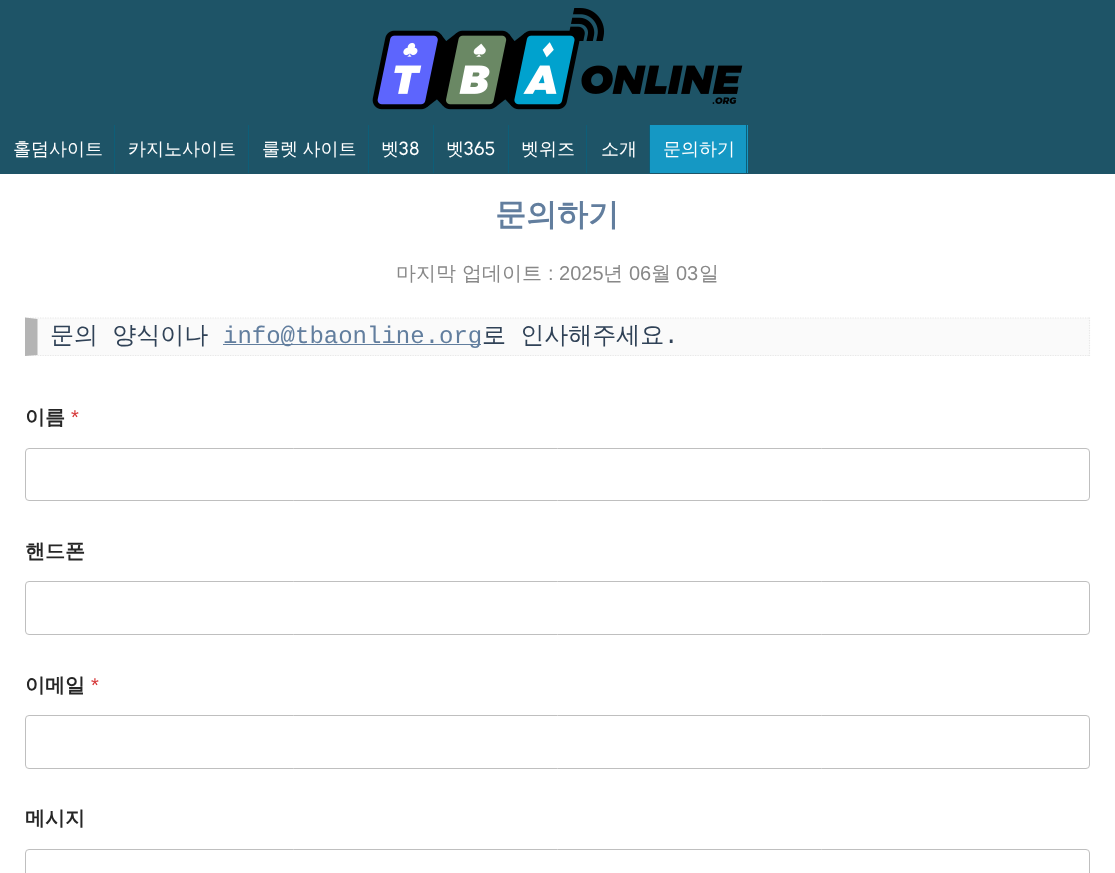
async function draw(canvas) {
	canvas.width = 1115;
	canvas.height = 873;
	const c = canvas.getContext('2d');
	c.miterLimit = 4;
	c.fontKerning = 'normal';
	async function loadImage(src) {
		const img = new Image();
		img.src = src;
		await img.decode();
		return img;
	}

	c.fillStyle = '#1e5467';
	c.fillRect(0, 0, 1115, 873);
	c.drawImage(await loadImage('img1.png'), 372, 8, 371, 102);
	c.fillStyle = '#0d5e78';
	c.fillRect(114, 125, 1, 48);
	c.font = '500 18px WenQuanYi Zen Hei';
	c.fillStyle = '#fff';
	c.fillText('홀덤사이트', 13, 155);
	c.fillStyle = '#0d5e78';
	c.fillRect(248, 125, 1, 48);
	c.fillStyle = '#fff';
	c.fillText('카지노사이트', 128, 155);
	c.fillStyle = '#0d5e78';
	c.fillRect(368, 125, 1, 48);
	c.wordSpacing = '-1px';
	c.fillStyle = '#fff';
	c.fillText('룰렛 사이트', 262, 155);
	c.fillStyle = '#0d5e78';
	c.fillRect(433, 125, 1, 48);
	c.wordSpacing = '0px';
	c.fillStyle = '#fff';
	c.fillText('벳', 381, 155);
	c.font = '18px Arvo';
	c.fillText('38', 399, 155);
	c.fillStyle = '#0d5e78';
	c.fillRect(508, 125, 1, 48);
	c.font = '500 18px WenQuanYi Zen Hei';
	c.fillStyle = '#fff';
	c.fillText('벳', 446, 155);
	c.font = '18px Arvo';
	c.fillText('365', 464, 155);
	c.fillStyle = '#0d5e78';
	c.fillRect(586, 125, 1, 48);
	c.font = '500 18px WenQuanYi Zen Hei';
	c.fillStyle = '#fff';
	c.fillText('벳위즈', 521, 155);
	c.fillStyle = '#0d5e78';
	c.fillRect(649, 125, 1, 48);
	c.fillStyle = '#fff';
	c.fillText('소개', 601, 155);
	c.fillStyle = '#1598c4';
	c.fillRect(650, 125, 98, 48);
	c.fillStyle = '#0d5e78';
	c.fillRect(746, 125, 1, 48);
	c.fillStyle = '#fff';
	c.fillText('문의하기', 663, 155);
	c.fillRect(0, 174, 1115, 699);
	c.font = 'bold 31px WenQuanYi Zen Hei';
	c.fillStyle = '#627e9e';
	c.fillText('문의하기', 495, 225);
	c.font = '500 20px WenQuanYi Zen Hei';
	c.fillStyle = '#888';
	c.fillText('마지막 업데이트', 396, 280);
	c.font = '20px Liberation Sans';
	c.fillText(': 2025', 548, 280);
	c.font = '500 20px WenQuanYi Zen Hei';
	c.fillText('년', 603, 280);
	c.font = '20px Liberation Sans';
	c.fillText('06', 629, 280);
	c.font = '500 20px WenQuanYi Zen Hei';
	c.fillText('월', 651, 280);
	c.font = '20px Liberation Sans';
	c.fillText('03', 676, 280);
	c.font = '500 20px WenQuanYi Zen Hei';
	c.fillText('일', 699, 280);
	c.fillStyle = '#fafafa';
	c.fillRect(26, 318, 1064, 38);
	c.beginPath();
	c.moveTo(25, 318);
	c.lineTo(1090, 318);
	c.strokeStyle = '#e8e8e8';
	c.lineWidth = 1.2;
	c.setLineDash([1.25, 1.25]);
	c.stroke();
	c.beginPath();
	c.moveTo(1089.5, 317.5);
	c.lineTo(1089.5, 356);
	c.stroke();
	c.beginPath();
	c.moveTo(25, 355.5);
	c.lineTo(1090, 355.5);
	c.stroke();
	c.fillStyle = '#b4b4b4';
	c.beginPath();
	c.moveTo(25, 356);
	c.lineTo(25, 317.5);
	c.lineTo(37.5, 319);
	c.lineTo(37.5, 355);
	c.closePath();
	c.fill();
	c.wordSpacing = '7px';
	c.font = '500 24px WenQuanYi Zen Hei';
	c.fillStyle = '#304257';
	c.fillText('문의 양식이나', 50, 343);
	c.fillStyle = '#627e9e';
	c.fillRect(223, 344, 258, 1);
	c.wordSpacing = '0px';
	c.font = '24px Liberation Mono';
	c.fillText('info@tbaonline.org', 223, 343);
	c.wordSpacing = '7px';
	c.font = '500 24px WenQuanYi Zen Hei';
	c.fillStyle = '#304257';
	c.fillText('로 인사해주세요', 482, 343);
	c.wordSpacing = '0px';
	c.font = '24px Liberation Mono';
	c.fillText('.', 664, 343);
	c.font = 'bold 20px WenQuanYi Zen Hei';
	c.fillStyle = '#262626';
	c.fillText('이름', 25, 424);
	c.font = '20px Liberation Sans';
	c.fillStyle = '#d63637';
	c.fillText('*', 71, 424);
	c.beginPath();
	c.roundRect(25.5, 448.5, 1064, 52, 3.5);
	c.strokeStyle = '#bfbfbf';
	c.lineWidth = 1;
	c.setLineDash([]);
	c.stroke();
	c.font = 'bold 20px WenQuanYi Zen Hei';
	c.fillStyle = '#262626';
	c.fillText('핸드폰', 25, 558);
	c.beginPath();
	c.roundRect(25.5, 581.5, 1064, 53, 3.5);
	c.stroke();
	c.fillText('이메일', 25, 692);
	c.font = '20px Liberation Sans';
	c.fillStyle = '#d63637';
	c.fillText('*', 91, 692);
	c.beginPath();
	c.roundRect(25.5, 715.5, 1064, 53, 3.5);
	c.stroke();
	c.font = 'bold 20px WenQuanYi Zen Hei';
	c.fillStyle = '#262626';
	c.fillText('메시지', 25, 825);
	c.beginPath();
	c.roundRect(25.5, 849.5, 1064, 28, 3.5);
	c.stroke();
}

draw(document.querySelector('canvas'));
